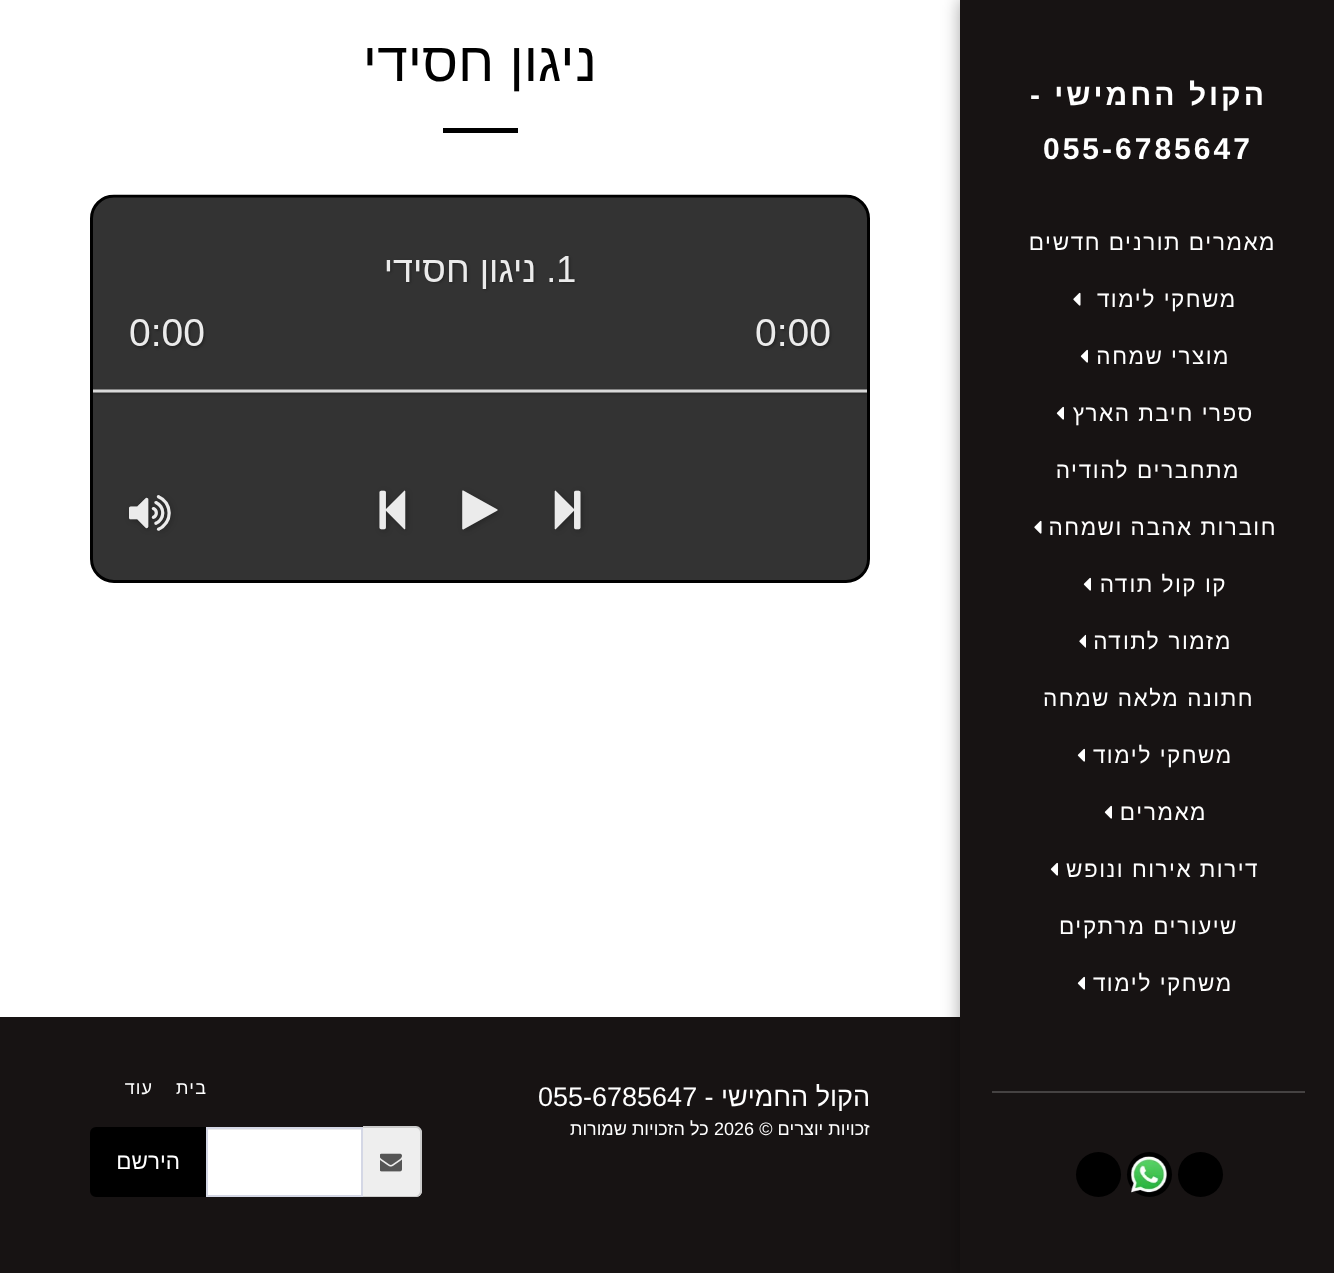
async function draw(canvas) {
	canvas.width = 1334;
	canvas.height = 1273;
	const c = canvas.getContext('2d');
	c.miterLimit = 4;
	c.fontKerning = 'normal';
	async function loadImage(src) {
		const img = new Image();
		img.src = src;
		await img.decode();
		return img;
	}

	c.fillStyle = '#fff';
	c.fillRect(0, 0, 1334, 1273);
	c.fillStyle = '#171313';
	c.fillRect(0, 1017, 960, 256);
	c.fillStyle = '#00000059';
	c.filter = 'blur(9px)';
	c.beginPath();
	c.rect(960, -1, 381, 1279);
	c.fill();
	c.filter = 'none';
	c.fillStyle = '#171313';
	c.fillRect(960, 0, 374, 1273);
	c.letterSpacing = '3px';
	c.direction = 'rtl';
	c.font = 'bold 30px Arimo';
	c.fillStyle = '#fff';
	c.fillText('הקול החמישי -', 1267, 105);
	c.direction = 'ltr';
	c.fillText('055-6785647', 1043, 159);
	c.letterSpacing = '1.5px';
	c.direction = 'rtl';
	c.font = '22.5px Arimo';
	c.fillText('מאמרים תורנים חדשים', 1276, 250);
	c.fillText('משחקי לימוד', 1237, 307);
	c.drawImage(await loadImage('img1.png'), 1073, 292, 8, 14);
	c.fillText('מוצרי שמחה', 1230, 364);
	c.drawImage(await loadImage('img2.png'), 1080, 349, 8, 14);
	c.fillText('ספרי חיבת הארץ', 1254, 421);
	c.drawImage(await loadImage('img2.png'), 1056, 406, 8, 14);
	c.fillText('מתחברים להודיה', 1240, 478);
	c.fillText('חוברות אהבה ושמחה', 1277, 535);
	c.drawImage(await loadImage('img1.png'), 1034, 520, 8, 14);
	c.fillText('קו קול תודה', 1227, 592);
	c.drawImage(await loadImage('img2.png'), 1083, 577, 8, 14);
	c.fillText('מזמור לתודה', 1232, 649);
	c.drawImage(await loadImage('img3.png'), 1079, 634, 7, 14);
	c.fillText('חתונה מלאה שמחה', 1254, 706);
	c.fillText('משחקי לימוד', 1233, 763);
	c.drawImage(await loadImage('img2.png'), 1077, 748, 8, 14);
	c.fillText('מאמרים', 1207, 820);
	c.drawImage(await loadImage('img2.png'), 1104, 805, 8, 14);
	c.fillText('דירות אירוח ונופש', 1259, 877);
	c.drawImage(await loadImage('img2.png'), 1050, 862, 8, 14);
	c.fillText('שיעורים מרתקים', 1238, 934);
	c.fillText('משחקי לימוד', 1233, 991);
	c.drawImage(await loadImage('img2.png'), 1077, 976, 8, 14);
	c.fillStyle = '#454242';
	c.fillRect(992, 1091, 313, 2);
	c.fillStyle = '#000';
	c.beginPath();
	c.arc(1200.5, 1174.5, 22.5, 0, 2 * Math.PI);
	c.fill();
	c.beginPath();
	c.arc(1149.5, 1174.5, 22.5, 0, 2 * Math.PI);
	c.fill();
	c.drawImage(await loadImage('img4.png'), 1131, 1156, 36, 37);
	c.beginPath();
	c.arc(1098.5, 1174.5, 22.5, 0, 2 * Math.PI);
	c.fill();
	c.letterSpacing = '0px';
	c.font = '55px Arimo';
	c.fillText('ניגון חסידי', 597, 81);
	c.fillRect(443, 128, 75, 5);
	c.drawImage(await loadImage('img5.png'), 90, 194, 780, 389);
	c.font = '27px Arimo';
	c.fillStyle = '#fff';
	c.fillText('הקול החמישי -', 870, 1106);
	c.direction = 'ltr';
	c.fillText('055-6785647', 538, 1106);
	c.direction = 'rtl';
	c.font = '18px Arimo';
	c.fillText('זכויות יוצרים ©', 870, 1135);
	c.direction = 'ltr';
	c.fillText('2026', 714, 1135);
	c.direction = 'rtl';
	c.fillText('כל הזכויות שמורות', 709, 1135);
	c.letterSpacing = '1px';
	c.fillText('בית', 207, 1094);
	c.fillText('עוד', 153, 1094);
	c.fillStyle = '#eee';
	c.beginPath();
	c.roundRect(363, 1127, 59, 70, [0, 6, 6, 0]);
	c.fill();
	c.fillStyle = '#ccc';
	c.beginPath();
	c.moveTo(363, 1126);
	c.lineTo(416, 1126);
	c.bezierCurveTo(419, 1126, 422, 1129, 422, 1132);
	c.lineTo(422, 1191);
	c.bezierCurveTo(422, 1194, 419, 1197, 416, 1197);
	c.lineTo(363, 1197);
	c.closePath();
	c.moveTo(363, 1128);
	c.lineTo(416, 1128);
	c.bezierCurveTo(418, 1128, 420, 1130, 420, 1132);
	c.lineTo(420, 1191);
	c.bezierCurveTo(420, 1193, 418, 1196, 416, 1196);
	c.lineTo(363, 1196);
	c.closePath();
	c.fill('evenodd');
	c.drawImage(await loadImage('img6.png'), 380, 1153, 22, 19);
	c.fillStyle = '#fff';
	c.fillRect(208, 1130, 153, 65);
	c.fillStyle = '#ececec';
	c.fillRect(207, 1129, 155, 1);
	c.fillStyle = '#000';
	c.beginPath();
	c.roundRect(91, 1128, 115, 68, [5, 0, 0, 5]);
	c.fill();
	c.strokeStyle = '#000';
	c.lineWidth = 2;
	c.stroke();
	c.strokeStyle = '#d4d7e5';
	c.strokeRect(207, 1128, 155, 68);
	c.letterSpacing = '0px';
	c.font = '22.5px Arimo';
	c.fillStyle = '#fff';
	c.fillText('הירשם', 180, 1169);
}

draw(document.querySelector('canvas'));
